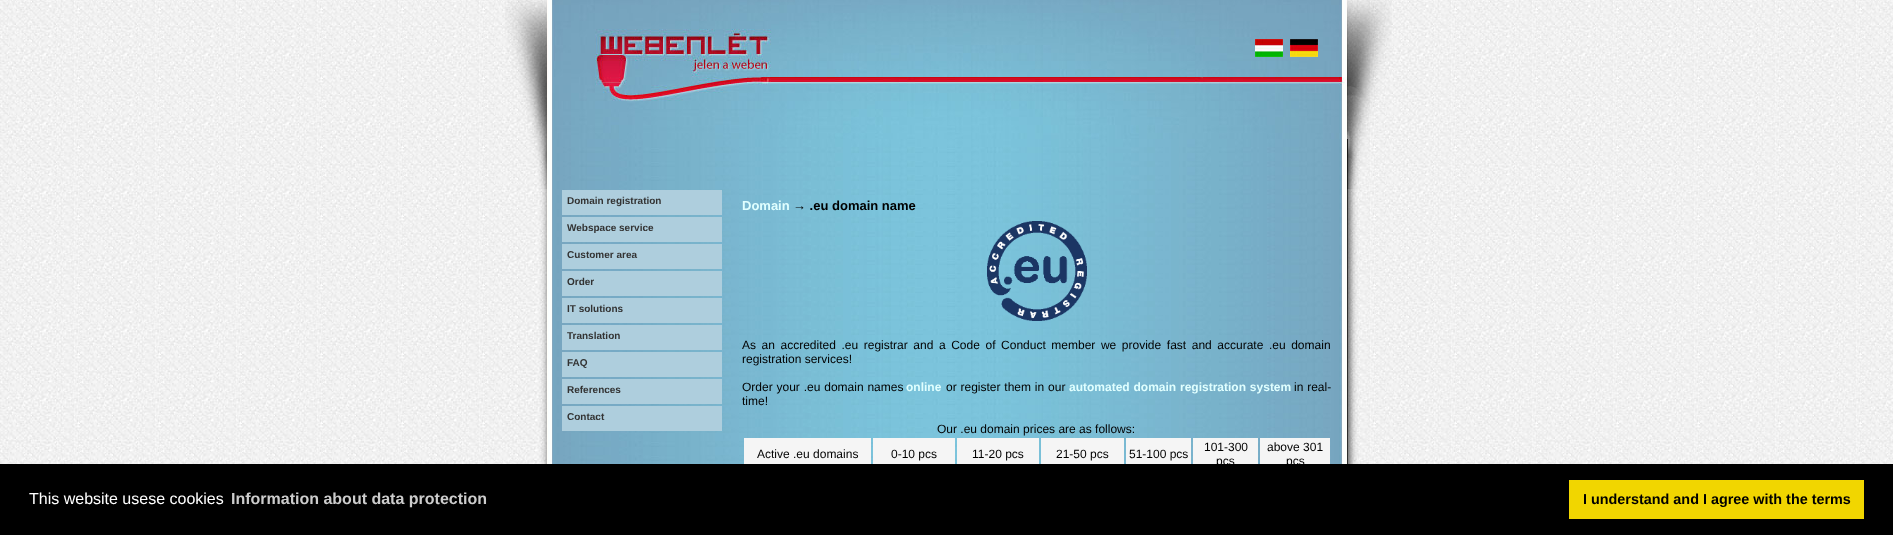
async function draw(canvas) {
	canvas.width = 1893;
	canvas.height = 535;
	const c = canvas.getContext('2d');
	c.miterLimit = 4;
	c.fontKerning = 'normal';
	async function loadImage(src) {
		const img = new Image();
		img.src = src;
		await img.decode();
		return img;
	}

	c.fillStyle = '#fff';
	c.fillRect(0, 0, 1893, 535);
	c.drawImage(await loadImage('img1.png'), 0, 0, 1893, 464);
	c.fillStyle = '#2d2d2d';
	c.fillRect(1347, 139, 1, 325);
	c.filter = 'blur(4.5px)';
	c.beginPath();
	c.rect(549, 150, 800, 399);
	c.fill();
	c.filter = 'none';
	c.drawImage(await loadImage('img2.png'), 505, 0, 42, 189);
	c.drawImage(await loadImage('img3.png'), 547, 0, 800, 139);
	c.drawImage(await loadImage('img4.png'), 1255, 39, 28, 18);
	c.drawImage(await loadImage('img5.png'), 1290, 39, 28, 18);
	c.drawImage(await loadImage('img6.png'), 1347, 0, 45, 189);
	c.drawImage(await loadImage('img7.png'), 547, 139, 800, 325);
	c.fillStyle = '#aecedd';
	c.fillRect(562, 190, 160, 25);
	c.font = 'bold 10px Liberation Sans';
	c.fillStyle = '#333';
	c.fillText('Domain registration', 567, 204);
	c.fillStyle = '#aecedd';
	c.fillRect(562, 217, 160, 25);
	c.fillStyle = '#333';
	c.fillText('Webspace service', 567, 231);
	c.fillStyle = '#aecedd';
	c.fillRect(562, 244, 160, 25);
	c.fillStyle = '#333';
	c.fillText('Customer area', 567, 258);
	c.fillStyle = '#aecedd';
	c.fillRect(562, 271, 160, 25);
	c.fillStyle = '#333';
	c.fillText('Order', 567, 285);
	c.fillStyle = '#aecedd';
	c.fillRect(562, 298, 160, 25);
	c.fillStyle = '#333';
	c.fillText('IT solutions', 567, 312);
	c.fillStyle = '#aecedd';
	c.fillRect(562, 325, 160, 25);
	c.fillStyle = '#333';
	c.fillText('Translation', 567, 339);
	c.fillStyle = '#aecedd';
	c.fillRect(562, 352, 160, 25);
	c.fillStyle = '#333';
	c.fillText('FAQ', 567, 366);
	c.fillStyle = '#aecedd';
	c.fillRect(562, 379, 160, 25);
	c.fillStyle = '#333';
	c.fillText('References', 567, 393);
	c.fillStyle = '#aecedd';
	c.fillRect(562, 406, 160, 25);
	c.fillStyle = '#333';
	c.fillText('Contact', 567, 420);
	c.font = 'bold 13px Liberation Sans';
	c.fillStyle = '#e0ffff';
	c.fillText('Domain', 742, 210);
	c.fillStyle = '#000';
	c.fillText('→ .eu domain name', 793, 210);
	c.drawImage(await loadImage('img8.png'), 987, 221, 100, 100);
	c.wordSpacing = '2.25px';
	c.font = '12px Liberation Sans';
	c.fillText('As an accredited .eu registrar and a Code of Conduct member we provide fast and accurate .eu domain', 742, 349);
	c.wordSpacing = '0px';
	c.fillText('registration services!', 742, 363);
	c.wordSpacing = '0.5px';
	c.fillText('Order your .eu domain names', 742, 391);
	c.wordSpacing = '0px';
	c.font = 'bold 12px Liberation Sans';
	c.fillStyle = '#e0ffff';
	c.fillText('online', 906, 391);
	c.wordSpacing = '0.5px';
	c.font = '12px Liberation Sans';
	c.fillStyle = '#000';
	c.fillText('or register them in our', 946, 391);
	c.font = 'bold 12px Liberation Sans';
	c.fillStyle = '#e0ffff';
	c.fillText('automated domain registration system', 1069, 391);
	c.font = '12px Liberation Sans';
	c.fillStyle = '#000';
	c.fillText('in real-', 1294, 391);
	c.wordSpacing = '0px';
	c.fillText('time!', 742, 405);
	c.fillText('Our .eu domain prices are as follows:', 937, 433);
	c.fillStyle = '#f5f5f5';
	c.fillRect(744, 438, 127, 26);
	c.fillStyle = '#000';
	c.fillText('Active .eu domains', 757, 458);
	c.fillStyle = '#f5f5f5';
	c.fillRect(873, 438, 82, 26);
	c.fillStyle = '#000';
	c.fillText('0-10 pcs', 891, 458);
	c.fillStyle = '#f5f5f5';
	c.fillRect(957, 438, 82, 26);
	c.fillStyle = '#000';
	c.fillText('11-20 pcs', 972, 458);
	c.fillStyle = '#f5f5f5';
	c.fillRect(1041, 438, 83, 26);
	c.fillStyle = '#000';
	c.fillText('21-50 pcs', 1056, 458);
	c.fillStyle = '#f5f5f5';
	c.fillRect(1126, 438, 65, 26);
	c.fillStyle = '#000';
	c.fillText('51-100 pcs', 1129, 458);
	c.fillStyle = '#f5f5f5';
	c.fillRect(1193, 438, 65, 26);
	c.fillStyle = '#000';
	c.fillText('101-300', 1204, 451);
	c.fillText('pcs', 1216, 465);
	c.fillStyle = '#f5f5f5';
	c.fillRect(1260, 438, 70, 26);
	c.fillStyle = '#000';
	c.fillText('above 301', 1267, 451);
	c.fillText('pcs', 1286, 465);
	c.fillRect(0, 464, 1893, 71);
	c.font = '16px Liberation Sans';
	c.fillStyle = '#fff';
	c.fillText('This website usese cookies', 29, 504);
	c.font = 'bold 16px Liberation Sans';
	c.fillStyle = '#ccc';
	c.fillText('Information about data protection', 231, 504);
	c.fillStyle = '#f1d600';
	c.fillRect(1569, 480, 295, 39);
	c.font = 'bold 14.4px Liberation Sans';
	c.fillStyle = '#000';
	c.fillText('I understand and I agree with the terms', 1583, 504);
}

draw(document.querySelector('canvas'));
